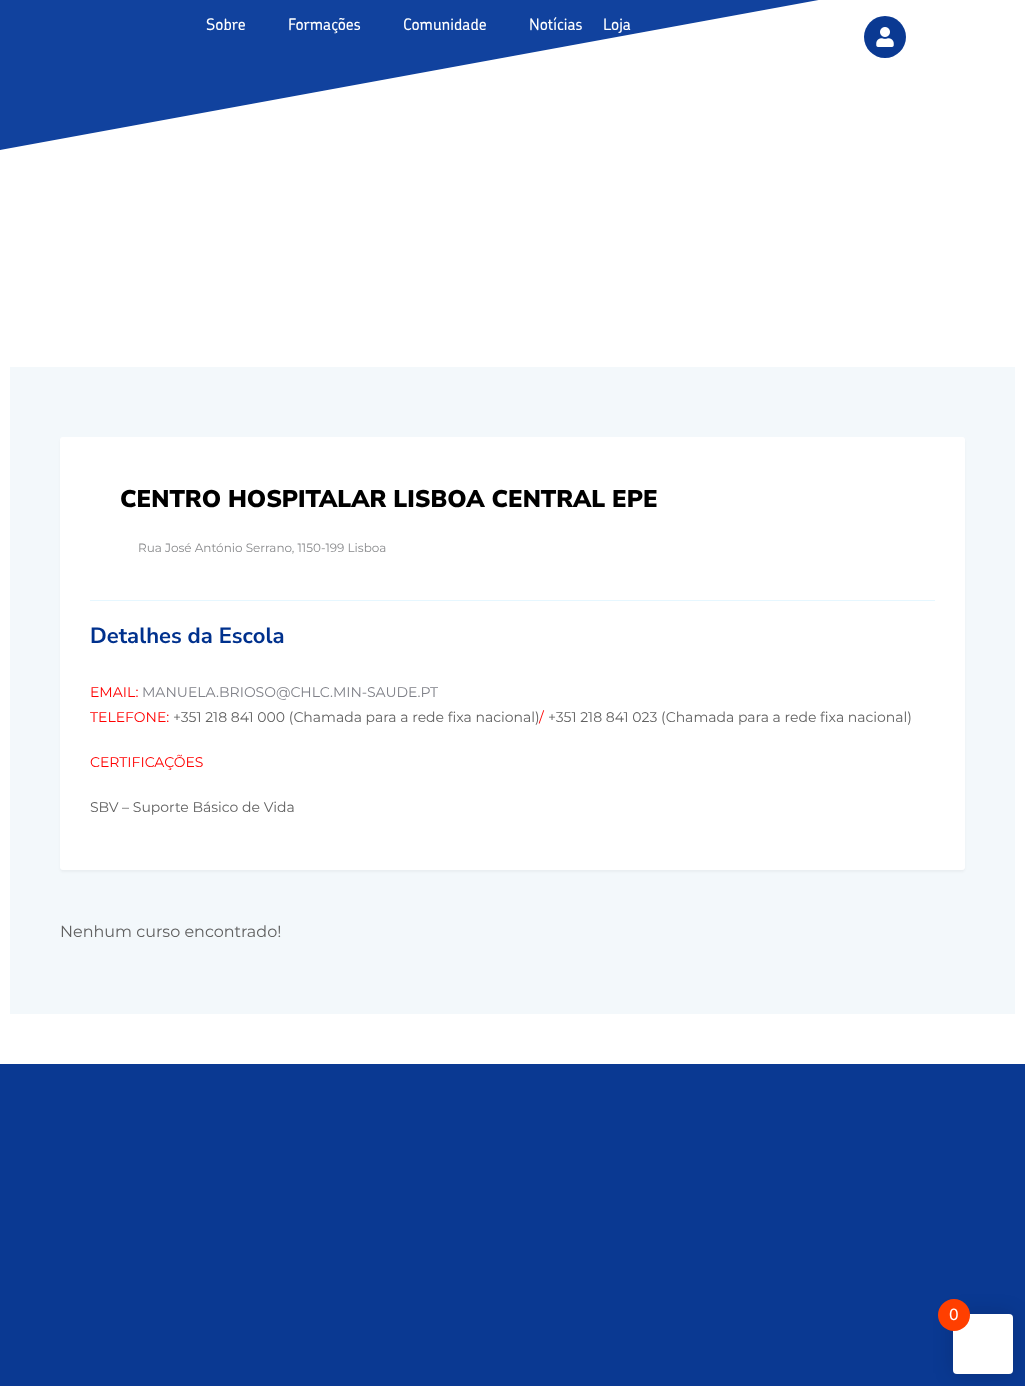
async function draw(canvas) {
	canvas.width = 1025;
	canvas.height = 1386;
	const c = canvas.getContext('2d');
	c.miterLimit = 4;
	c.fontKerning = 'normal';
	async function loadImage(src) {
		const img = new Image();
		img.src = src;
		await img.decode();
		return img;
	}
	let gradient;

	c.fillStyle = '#fff';
	c.fillRect(0, 0, 1025, 1386);
	gradient = c.createLinearGradient(482, -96, 543, 247);
	gradient.addColorStop(0.65, '#11429e');
	gradient.addColorStop(0.65, '#fff');
	c.fillStyle = gradient;
	c.fillRect(0, 0, 819, 150);
	c.fillStyle = '#fff';
	c.beginPath();
	c.moveTo(0, 150);
	c.lineTo(0, 162);
	c.lineTo(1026, 162);
	c.lineTo(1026, -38);
	c.closePath();
	c.fill();
	c.font = '500 16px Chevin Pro';
	for (const [text, x, y] of [
		['Sobre', 206, 30],
		['Formações', 288, 30],
		['Comunidade', 403, 30],
		['Notícias', 529, 30],
		['Loja', 603, 30],
	]) {
		c.fillText(text, x, y);
	}
	c.fillStyle = '#0a3992';
	c.beginPath();
	c.arc(885, 37, 21, 0, 2 * Math.PI);
	c.fill();
	c.drawImage(await loadImage('img1.png'), 876, 27, 18, 20);
	c.fillStyle = '#f3f8fb';
	c.fillRect(10, 367, 1005, 647);
	c.fillStyle = '#0000000a';
	c.filter = 'blur(1px)';
	c.beginPath();
	c.roundRect(60, 439, 905, 433, 3);
	c.fill();
	c.filter = 'none';
	c.fillStyle = '#fff';
	c.beginPath();
	c.roundRect(60, 437, 905, 433, 3);
	c.fill();
	c.font = '900 24px Nunito Sans';
	c.fillStyle = '#000';
	c.fillText('CENTRO HOSPITALAR LISBOA CENTRAL EPE', 120, 507);
	c.font = '12px Montserrat';
	c.fillStyle = '#898a8c';
	c.fillText('Rua José António Serrano, 1150-199 Lisboa', 138, 552);
	c.fillStyle = '#e6f7ff';
	c.fillRect(90, 600, 845, 1);
	c.font = 'bold 22px Nunito Sans';
	c.fillStyle = '#00318d';
	c.fillText('Detalhes da Escola', 90, 643);
	c.font = '14px Montserrat';
	c.fillStyle = '#f00';
	c.fillText('EMAIL:', 90, 697);
	c.fillStyle = '#7f8088';
	c.fillText('MANUELA.BRIOSO@CHLC.MIN-SAUDE.PT', 142, 697);
	c.fillStyle = '#f00';
	c.fillText('TELEFONE:', 90, 722);
	c.fillStyle = '#616161';
	c.fillText('+351 218 841 000 (Chamada para a rede fixa nacional)', 173, 722);
	c.fillStyle = '#f00';
	c.fillText('/', 539, 722);
	c.fillStyle = '#616161';
	c.fillText('+351 218 841 023 (Chamada para a rede fixa nacional)', 548, 722);
	c.fillStyle = '#f00';
	c.fillText('CERTIFICAÇÕES', 90, 767);
	c.fillStyle = '#616161';
	c.fillText('SBV – Suporte Básico de Vida', 90, 812);
	c.font = '16px Montserrat';
	c.fillText('Nenhum curso encontrado!', 60, 937);
	c.fillStyle = '#0a3992';
	c.fillRect(0, 1064, 1025, 322);
	c.fillStyle = '#00000026';
	c.filter = 'blur(10px)';
	c.beginPath();
	c.roundRect(953, 1314, 60, 60, 4);
	c.fill();
	c.filter = 'none';
	c.fillStyle = '#fff';
	c.beginPath();
	c.roundRect(953, 1314, 60, 60, 4);
	c.fill();
	c.fillStyle = '#ff3f00';
	c.beginPath();
	c.arc(954, 1315, 16, 0, 2 * Math.PI);
	c.fill();
	c.font = '500 16px Nunito Sans';
	c.fillStyle = '#fff';
	c.fillText('0', 949, 1320);
}

draw(document.querySelector('canvas'));
